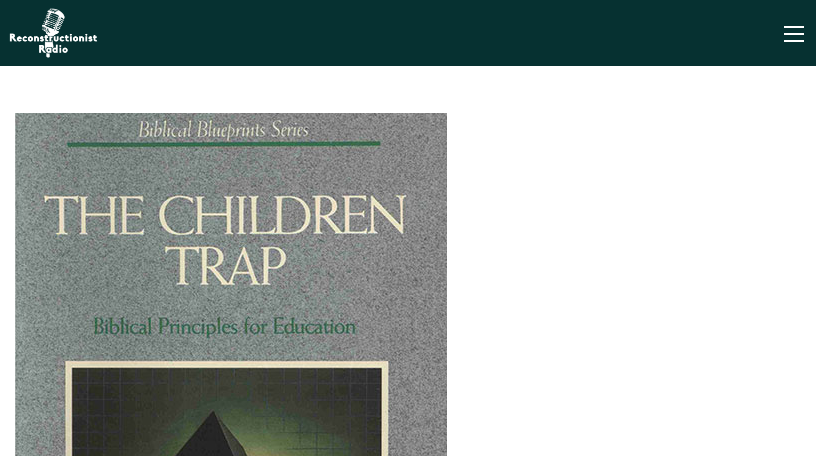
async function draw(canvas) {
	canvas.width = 816;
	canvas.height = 456;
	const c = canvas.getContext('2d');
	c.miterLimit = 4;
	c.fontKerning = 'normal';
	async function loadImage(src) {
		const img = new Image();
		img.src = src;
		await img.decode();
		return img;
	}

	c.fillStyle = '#fff';
	c.fillRect(0, 0, 816, 456);
	c.fillStyle = '#063131';
	c.fillRect(0, 0, 816, 66);
	c.drawImage(await loadImage('img1.png'), 9, 8, 89, 50);
	for (const [x, y, w, h, color] of [
		[784, 40, 20, 2, '#fff'],
		[784, 33, 20, 2, '#fff'],
		[784, 26, 20, 2, '#fff'],
	]) {
		c.fillStyle = color;
		c.fillRect(x, y, w, h);
	}
	c.drawImage(await loadImage('img2.png'), 15, 113, 432, 343);
}

draw(document.querySelector('canvas'));
